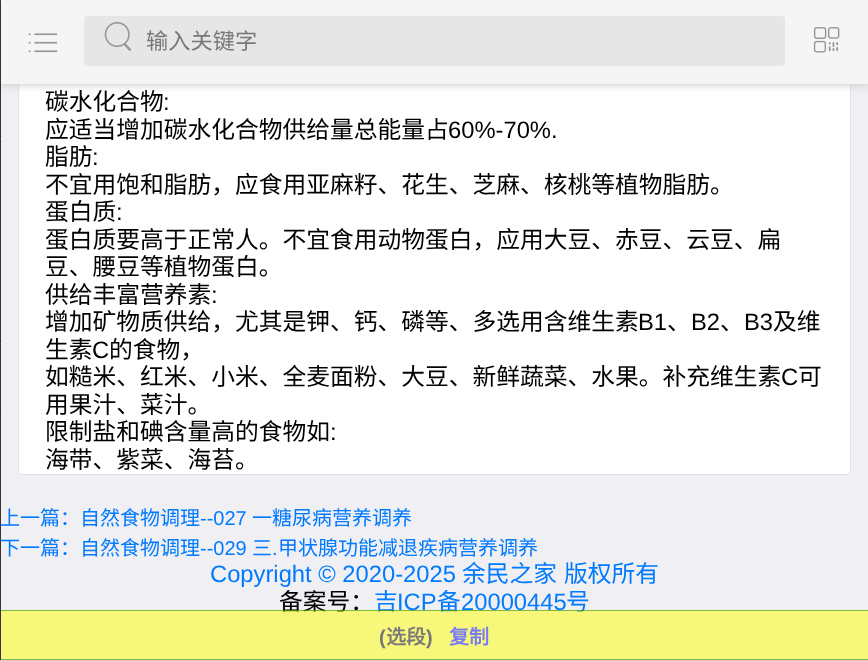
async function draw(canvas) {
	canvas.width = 868;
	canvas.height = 660;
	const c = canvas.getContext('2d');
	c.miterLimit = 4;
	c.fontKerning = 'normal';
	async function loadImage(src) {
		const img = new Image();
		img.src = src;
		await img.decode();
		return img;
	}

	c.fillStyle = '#efeff4';
	c.fillRect(0, 0, 868, 660);
	c.fillStyle = '#fff';
	c.beginPath();
	c.roundRect(18.5, -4.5, 832, 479, 3.5);
	c.fill();
	c.strokeStyle = '#e1e1e1';
	c.stroke();
	c.fillStyle = '#ccc';
	c.filter = 'blur(4px)';
	c.beginPath();
	c.rect(0, 1, 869, 84);
	c.fill();
	c.filter = 'none';
	c.font = '23.75px Noto Sans CJK SC';
	c.fillStyle = '#000';
	c.fillText('备案号：', 279, 610);
	c.fillStyle = '#007aff';
	c.fillText('吉', 374, 610);
	c.font = '23.75px Liberation Sans';
	c.fillText('ICP', 397, 610);
	c.font = '23.75px Noto Sans CJK SC';
	c.fillText('备', 437, 610);
	c.font = '23.75px Liberation Sans';
	c.fillText('20000445', 461, 610);
	c.font = '23.75px Noto Sans CJK SC';
	c.fillText('号', 566, 610);
	c.fillStyle = '#ffff0080';
	c.fillRect(1, 610, 867, 50);
	c.strokeStyle = '#00800080';
	c.strokeRect(0.5, 610.5, 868, 49);
	for (const [x, y, w, h, color] of [
		[0, 0, 1, 660, '#343434'],
		[0, 0, 1, 1, '#4d4d4d'],
		[0, 68, 1, 1, '#262626'],
		[0, 69, 1, 1, '#4d4d4d'],
		[0, 136, 1, 1, '#262626'],
		[0, 138, 1, 1, '#4d4d4d'],
		[0, 205, 1, 1, '#262626'],
		[0, 206, 1, 1, '#4d4d4d'],
		[0, 273, 1, 1, '#262626'],
		[0, 274, 1, 1, '#4d4d4d'],
		[0, 341, 1, 1, '#262626'],
		[0, 343, 1, 1, '#4d4d4d'],
		[0, 410, 1, 1, '#262626'],
		[1, 0, 867, 84, '#f5f5f5'],
	]) {
		c.fillStyle = color;
		c.fillRect(x, y, w, h);
	}
	c.drawImage(await loadImage('img1.png'), 28, 33, 30, 20);
	c.fillStyle = '#e6e6e6';
	c.beginPath();
	c.roundRect(84, 16, 701, 50, 4);
	c.fill();
	c.drawImage(await loadImage('img2.png'), 104, 22, 28, 29);
	c.font = '22.25px Noto Sans CJK SC';
	c.fillStyle = '#78787a';
	c.fillText('输入关键字', 146, 49);
	c.drawImage(await loadImage('img3.png'), 813, 27, 27, 26);
	c.font = '23.75px Noto Sans CJK SC';
	c.fillStyle = '#000';
	c.fillText('碳水化合物', 45, 110);
	c.font = '23.75px Liberation Sans';
	c.fillText(':', 163, 110);
	c.font = '23.75px Noto Sans CJK SC';
	c.fillText('应适当增加碳水化合物供给量总能量占', 45, 138);
	c.font = '23.75px Liberation Sans';
	c.fillText('60%-70%.', 448, 138);
	c.font = '23.75px Noto Sans CJK SC';
	c.fillText('脂肪', 45, 165);
	c.font = '23.75px Liberation Sans';
	c.fillText(':', 92, 165);
	c.font = '23.75px Noto Sans CJK SC';
	c.fillText('不宜用饱和脂肪，应食用亚麻籽、花生、芝麻、核桃等植物脂肪。', 45, 193);
	c.fillText('蛋白质', 45, 220);
	c.font = '23.75px Liberation Sans';
	c.fillText(':', 116, 220);
	c.font = '23.75px Noto Sans CJK SC';
	for (const [text, x, y] of [
		['蛋白质要高于正常人。不宜食用动物蛋白，应用大豆、赤豆、云豆、扁', 45, 248],
		['豆、腰豆等植物蛋白。', 45, 275],
		['供给丰富营养素', 45, 303],
	]) {
		c.fillText(text, x, y);
	}
	c.font = '23.75px Liberation Sans';
	c.fillText(':', 211, 303);
	c.font = '23.75px Noto Sans CJK SC';
	c.fillText('增加矿物质供给，尤其是钾、钙、磷等、多选用含维生素', 45, 330);
	c.font = '23.75px Liberation Sans';
	c.fillText('B1', 638, 330);
	c.font = '23.75px Noto Sans CJK SC';
	c.fillText('、', 667, 330);
	c.font = '23.75px Liberation Sans';
	c.fillText('B2', 691, 330);
	c.font = '23.75px Noto Sans CJK SC';
	c.fillText('、', 720, 330);
	c.font = '23.75px Liberation Sans';
	c.fillText('B3', 744, 330);
	c.font = '23.75px Noto Sans CJK SC';
	c.fillText('及维', 773, 330);
	c.fillText('生素', 45, 358);
	c.font = '23.75px Liberation Sans';
	c.fillText('C', 92, 358);
	c.font = '23.75px Noto Sans CJK SC';
	c.fillText('的食物，', 109, 358);
	c.fillText('如糙米、红米、小米、全麦面粉、大豆、新鲜蔬菜、水果。补充维生素', 45, 385);
	c.font = '23.75px Liberation Sans';
	c.fillText('C', 781, 385);
	c.font = '23.75px Noto Sans CJK SC';
	for (const [text, x, y] of [
		['可', 798, 385],
		['用果汁、菜汁。', 45, 413],
		['限制盐和碘含量高的食物如', 45, 440],
	]) {
		c.fillText(text, x, y);
	}
	c.font = '23.75px Liberation Sans';
	c.fillText(':', 330, 440);
	c.font = '23.75px Noto Sans CJK SC';
	c.fillText('海带、紫菜、海苔。', 45, 468);
	c.font = '20px Noto Sans CJK SC';
	c.fillStyle = '#007aff';
	c.fillText('上一篇：自然食物调理', 0, 525);
	c.font = '20px Liberation Sans';
	c.fillText('--027', 200, 525);
	c.font = '20px Noto Sans CJK SC';
	c.fillText('一糖尿病营养调养', 252, 525);
	c.fillText('下一篇：自然食物调理', 0, 555);
	c.font = '20px Liberation Sans';
	c.fillText('--029', 200, 555);
	c.font = '20px Noto Sans CJK SC';
	c.fillText('三', 252, 555);
	c.font = '20px Liberation Sans';
	c.fillText('.', 272, 555);
	c.font = '20px Noto Sans CJK SC';
	c.fillText('甲状腺功能减退疾病营养调养', 278, 555);
	c.font = '23.75px Liberation Sans';
	c.fillText('Copyright © 2020-2025', 210, 582);
	c.font = '23.75px Noto Sans CJK SC';
	c.fillText('余民之家', 462, 582);
	c.fillText('版权所有', 564, 582);
	c.font = 'bold 20px Liberation Sans';
	c.fillStyle = '#78787a';
	c.fillText('(', 379, 644);
	c.font = 'bold 20px Noto Sans CJK SC';
	c.fillText('选段', 386, 644);
	c.font = 'bold 20px Liberation Sans';
	c.fillText(')', 426, 644);
	c.font = 'bold 20px Noto Sans CJK SC';
	c.fillStyle = '#7878fa';
	c.fillText('复制', 449, 644);
}

draw(document.querySelector('canvas'));
